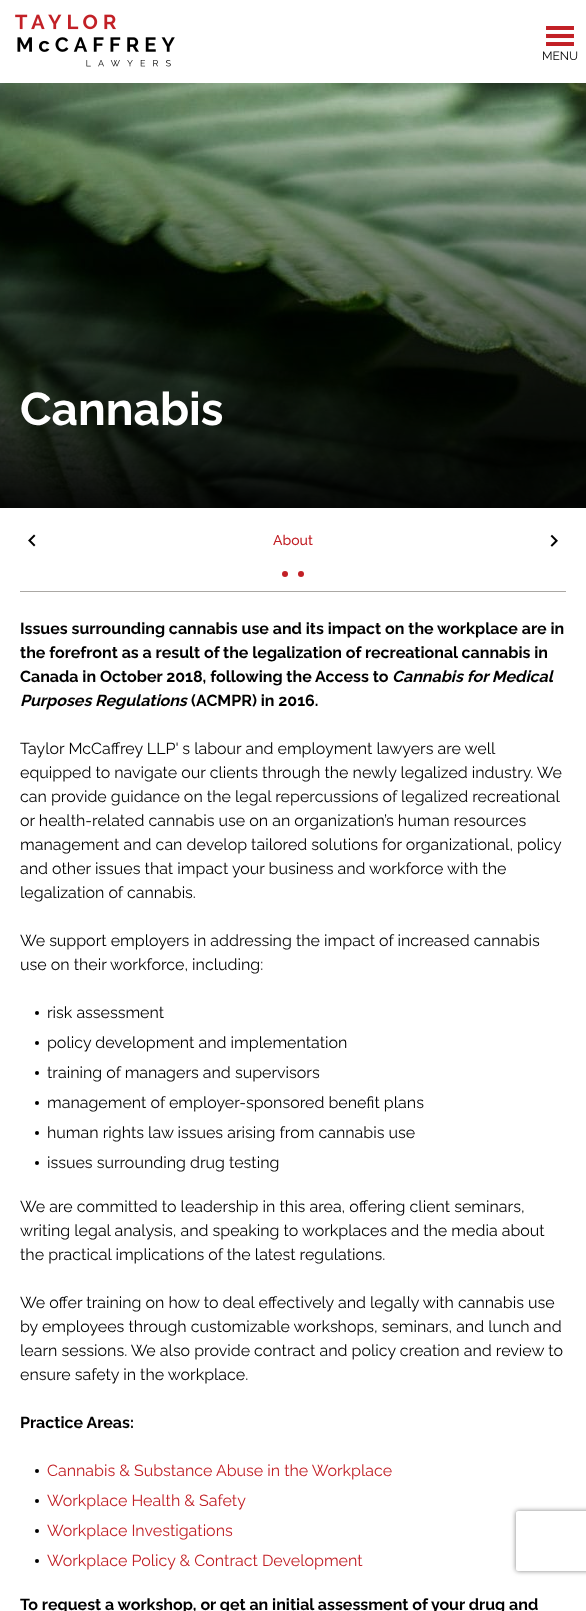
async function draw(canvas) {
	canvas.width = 586;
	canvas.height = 1611;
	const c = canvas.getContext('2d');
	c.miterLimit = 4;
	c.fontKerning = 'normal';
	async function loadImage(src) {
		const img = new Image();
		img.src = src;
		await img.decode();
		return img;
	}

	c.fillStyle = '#fff';
	c.fillRect(0, 0, 586, 1611);
	c.drawImage(await loadImage('img1.png'), 15, 14, 160, 53);
	c.drawImage(await loadImage('img2.png'), 546, 26, 28, 20);
	c.font = '12px Raleway';
	c.fillStyle = '#000';
	c.fillText('MENU', 542, 60);
	c.drawImage(await loadImage('img3.png'), 0, 83, 586, 425);
	c.font = 'bold 46px Raleway';
	c.fillStyle = '#fff';
	c.fillText('Cannabis', 20, 425);
	c.fillStyle = '#aba8a4';
	c.fillRect(20, 591, 546, 1);
	c.drawImage(await loadImage('img4.png'), 28, 534, 8, 13);
	c.font = '500 14px Raleway';
	c.fillStyle = '#c22026';
	c.fillText('About', 273, 545);
	c.drawImage(await loadImage('img5.png'), 550, 534, 8, 13);
	c.beginPath();
	c.arc(285, 574, 3, 0, 2 * Math.PI);
	c.fill();
	c.beginPath();
	c.arc(301, 574, 3, 0, 2 * Math.PI);
	c.fill();
	c.font = 'bold 16px Raleway';
	c.fillStyle = '#000';
	for (const [text, x, y] of [
		['Issues surrounding cannabis use and its impact on the workplace are in', 20, 634],
		['the forefront as a result of the legalization of recreational cannabis in', 20, 658],
		['Canada in October 2018, following the Access to', 20, 682],
	]) {
		c.fillText(text, x, y);
	}
	c.font = 'italic bold 16px Raleway';
	c.fillText('Cannabis for Medical', 392, 682);
	c.fillText('Purposes Regulations', 20, 706);
	c.font = 'bold 16px Raleway';
	c.fillText('(ACMPR) in 2016.', 191, 706);
	c.font = '16px Raleway';
	for (const [text, x, y] of [
		['Taylor McCaffrey LLP\' s labour and employment lawyers are well', 20, 754],
		['equipped to navigate our clients through the newly legalized industry. We', 20, 778],
		['can provide guidance on the legal repercussions of legalized recreational', 20, 802],
		['or health-related cannabis use on an organization’s human resources', 20, 826],
		['management and can develop tailored solutions for organizational, policy', 20, 850],
		['and other issues that impact your business and workforce with the', 20, 874],
		['legalization of cannabis.', 20, 898],
		['We support employers in addressing the impact of increased cannabis', 20, 946],
		['use on their workforce, including:', 20, 970],
	]) {
		c.fillText(text, x, y);
	}
	c.beginPath();
	c.arc(37, 1013, 2, 0, 2 * Math.PI);
	c.fill();
	c.fillText('risk assessment', 47, 1018);
	c.beginPath();
	c.arc(37, 1043, 2, 0, 2 * Math.PI);
	c.fill();
	c.fillText('policy development and implementation', 47, 1048);
	c.beginPath();
	c.arc(37, 1073, 2, 0, 2 * Math.PI);
	c.fill();
	c.fillText('training of managers and supervisors', 47, 1078);
	c.beginPath();
	c.arc(37, 1103, 2, 0, 2 * Math.PI);
	c.fill();
	c.fillText('management of employer-sponsored benefit plans', 47, 1108);
	c.beginPath();
	c.arc(37, 1133, 2, 0, 2 * Math.PI);
	c.fill();
	c.fillText('human rights law issues arising from cannabis use', 47, 1138);
	c.beginPath();
	c.arc(37, 1163, 2, 0, 2 * Math.PI);
	c.fill();
	for (const [text, x, y] of [
		['issues surrounding drug testing', 47, 1168],
		['We are committed to leadership in this area, offering client seminars,', 20, 1212],
		['writing legal analysis, and speaking to workplaces and the media about', 20, 1236],
		['the practical implications of the latest regulations.', 20, 1260],
		['We offer training on how to deal effectively and legally with cannabis use', 20, 1308],
		['by employees through customizable workshops, seminars, and lunch and', 20, 1332],
		['learn sessions. We also provide contract and policy creation and review to', 20, 1356],
		['ensure safety in the workplace.', 20, 1380],
	]) {
		c.fillText(text, x, y);
	}
	c.font = 'bold 16px Raleway';
	c.fillText('Practice Areas:', 20, 1428);
	c.beginPath();
	c.arc(37, 1471, 2, 0, 2 * Math.PI);
	c.fill();
	c.font = '16px Raleway';
	c.fillStyle = '#c22026';
	c.fillText('Cannabis & Substance Abuse in the Workplace', 47, 1476);
	c.fillStyle = '#000';
	c.beginPath();
	c.arc(37, 1501, 2, 0, 2 * Math.PI);
	c.fill();
	c.fillStyle = '#c22026';
	c.fillText('Workplace Health & Safety', 47, 1506);
	c.fillStyle = '#000';
	c.beginPath();
	c.arc(37, 1531, 2, 0, 2 * Math.PI);
	c.fill();
	c.fillStyle = '#c22026';
	c.fillText('Workplace Investigations', 47, 1536);
	c.fillStyle = '#000';
	c.beginPath();
	c.arc(37, 1561, 2, 0, 2 * Math.PI);
	c.fill();
	c.fillStyle = '#c22026';
	c.fillText('Workplace Policy & Contract Development', 47, 1566);
	c.font = 'bold 16px Raleway';
	c.fillStyle = '#000';
	c.fillText('To request a workshop, or get an initial assessment of your drug and', 20, 1610);
	c.save();
	c.beginPath();
	c.moveTo(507, 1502);
	c.lineTo(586, 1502);
	c.lineTo(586, 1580);
	c.lineTo(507, 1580);
	c.closePath();
	c.moveTo(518, 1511);
	c.lineTo(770, 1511);
	c.bezierCurveTo(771, 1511, 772, 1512, 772, 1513);
	c.lineTo(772, 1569);
	c.bezierCurveTo(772, 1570, 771, 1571, 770, 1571);
	c.lineTo(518, 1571);
	c.bezierCurveTo(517, 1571, 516, 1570, 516, 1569);
	c.lineTo(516, 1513);
	c.bezierCurveTo(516, 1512, 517, 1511, 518, 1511);
	c.closePath();
	c.clip('evenodd');
	c.fillStyle = '#808080';
	c.filter = 'blur(2.5px)';
	c.beginPath();
	c.roundRect(516, 1511, 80, 60, 2);
	c.fill();
	c.filter = 'none';
	c.restore();
}

draw(document.querySelector('canvas'));
